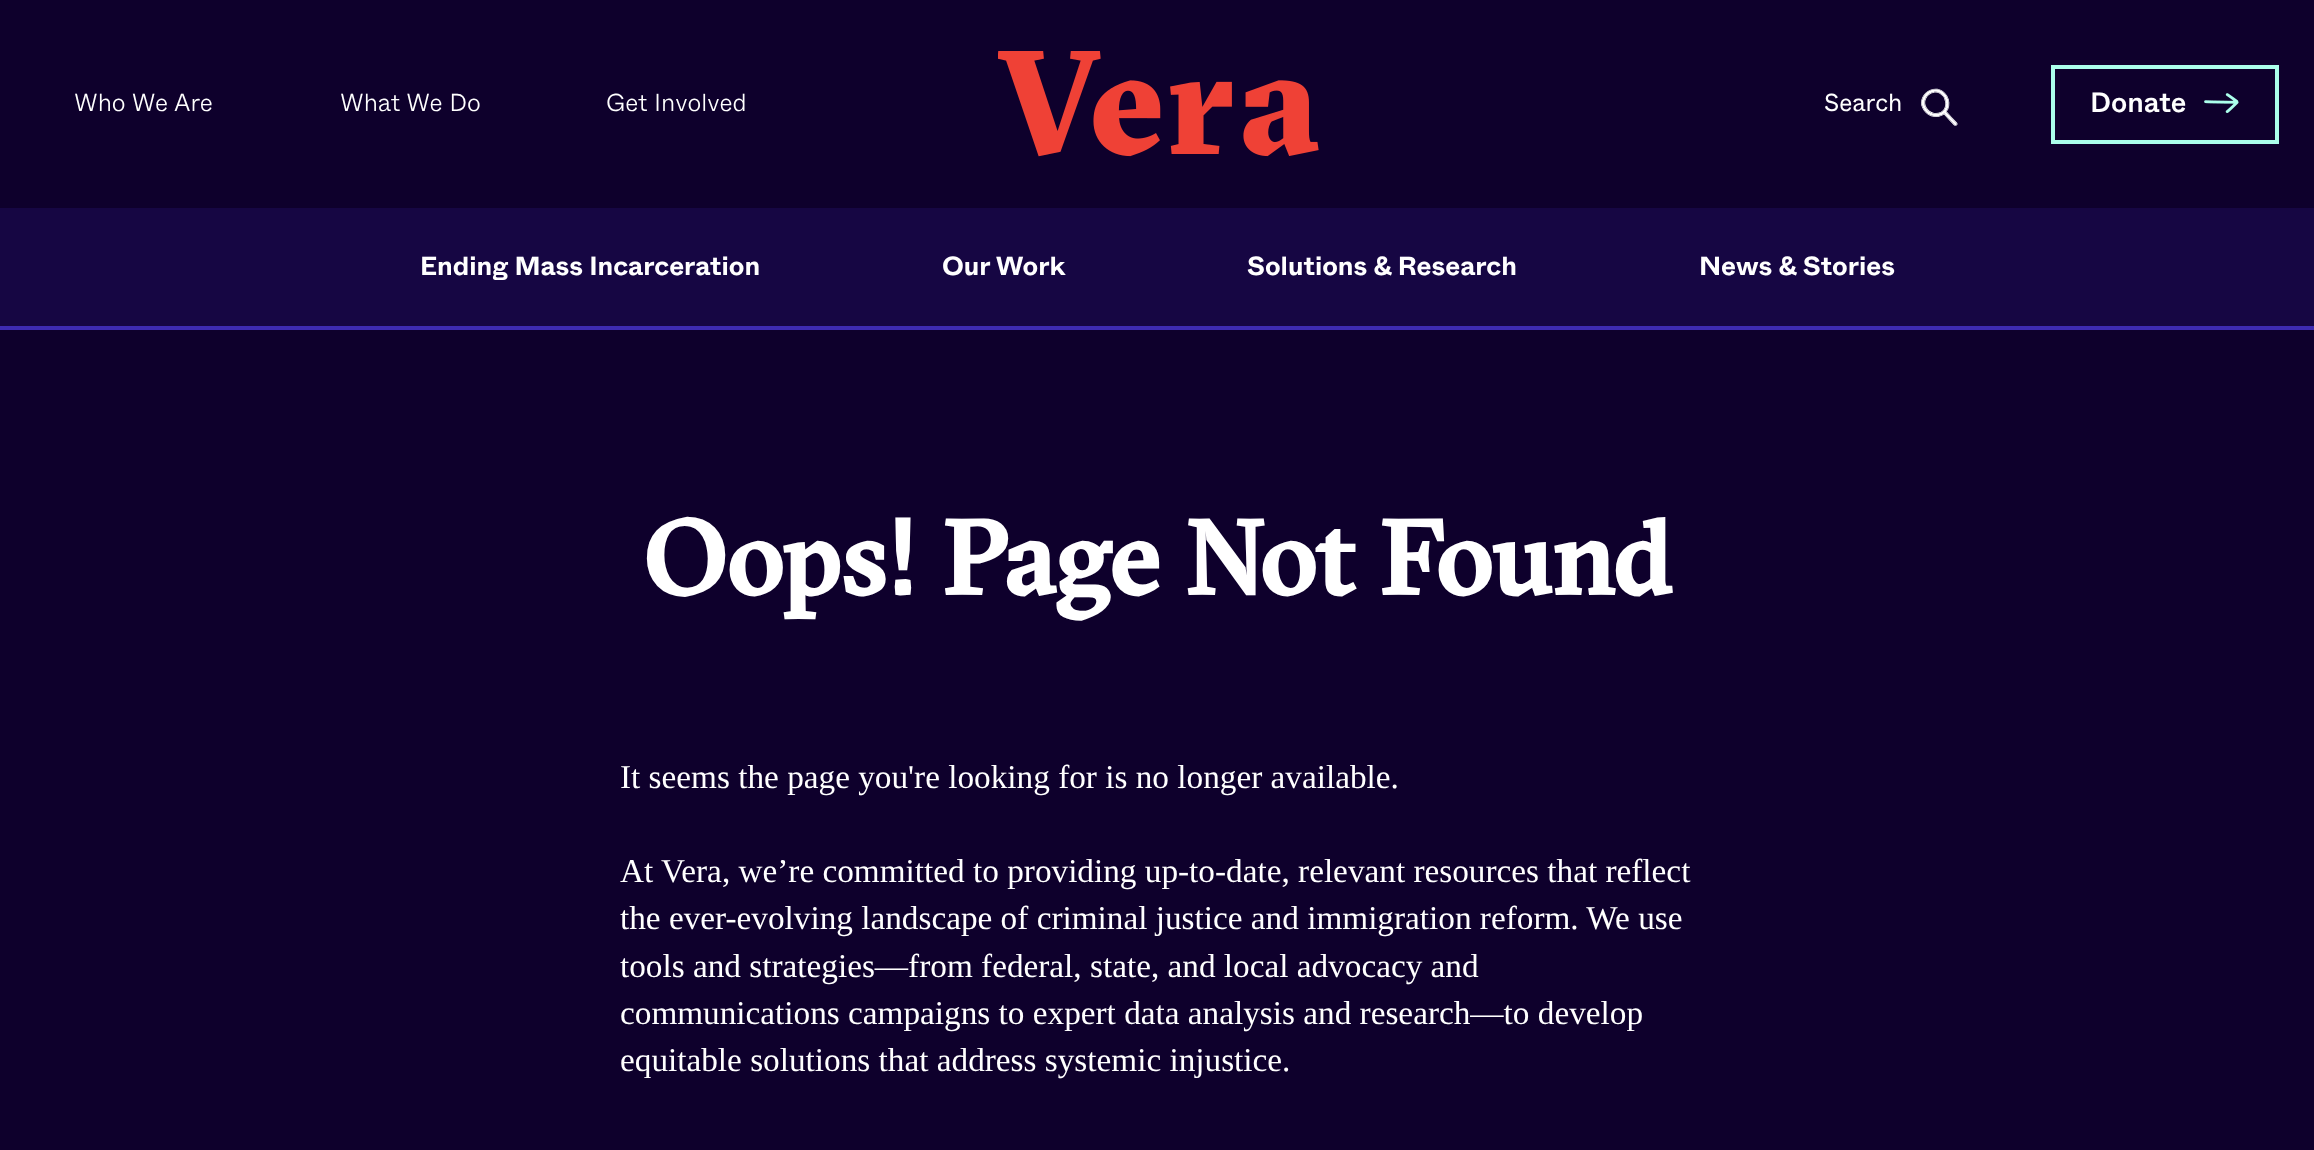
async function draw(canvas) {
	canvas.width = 2314;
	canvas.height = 1150;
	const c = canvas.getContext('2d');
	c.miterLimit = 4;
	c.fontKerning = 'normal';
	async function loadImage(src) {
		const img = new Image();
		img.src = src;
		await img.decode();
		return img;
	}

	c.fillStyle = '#0e002c';
	c.fillRect(0, 0, 2314, 1150);
	c.fillStyle = '#160643';
	c.fillRect(0, 208, 2314, 118);
	c.font = '300 24.5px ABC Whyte';
	c.fillStyle = '#fff';
	for (const [text, x, y] of [
		['Who We Are', 74, 111],
		['What We Do', 340, 111],
		['Get Involved', 606, 111],
	]) {
		c.fillText(text, x, y);
	}
	c.drawImage(await loadImage('img1.png'), 998, 51, 321, 106);
	c.font = '24.5px ABC Whyte';
	c.fillText('Search', 1824, 111);
	c.drawImage(await loadImage('img2.png'), 1921, 88, 37, 38);
	c.drawImage(await loadImage('img3.png'), 2204, 93, 35, 20);
	c.strokeStyle = '#abffeb';
	c.lineWidth = 4;
	c.strokeRect(2053, 67, 224, 75);
	c.font = '500 28px ABC Whyte';
	c.fillText('Donate', 2090, 112);
	c.fillStyle = '#3e2bb1';
	c.fillRect(0, 326, 2314, 4);
	c.font = 'bold 26.25px ABC Whyte';
	c.fillStyle = '#fff';
	for (const [text, x, y] of [
		['Ending Mass Incarceration', 420, 275],
		['Our Work', 942, 275],
		['Solutions & Research', 1247, 275],
		['News & Stories', 1699, 275],
	]) {
		c.fillText(text, x, y);
	}
	c.font = 'bold 105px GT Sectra';
	c.fillText('Oops! Page Not Found', 643, 595);
	c.font = '33.25px Liberation Serif';
	for (const [text, x, y] of [
		['It seems the page you\'re looking for is no longer available.', 620, 788],
		['At Vera, we’re committed to providing up-to-date, relevant resources that reflect', 620, 882],
		['the ever-evolving landscape of criminal justice and immigration reform. We use', 620, 929],
		['tools and strategies—from federal, state, and local advocacy and', 620, 977],
		['communications campaigns to expert data analysis and research—to develop', 620, 1024],
		['equitable solutions that address systemic injustice.', 620, 1071],
	]) {
		c.fillText(text, x, y);
	}
}

draw(document.querySelector('canvas'));
